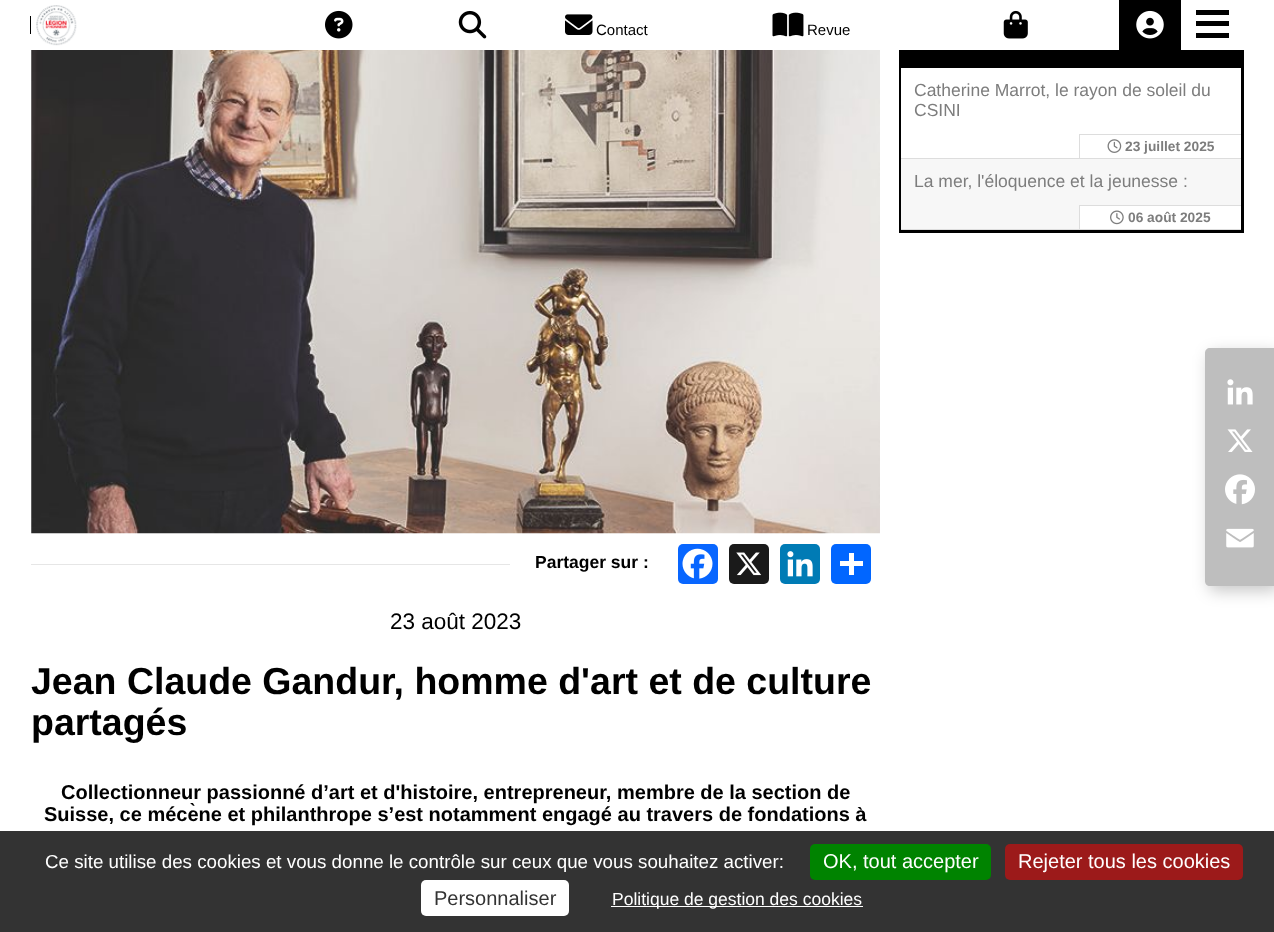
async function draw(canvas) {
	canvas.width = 1274;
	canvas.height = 932;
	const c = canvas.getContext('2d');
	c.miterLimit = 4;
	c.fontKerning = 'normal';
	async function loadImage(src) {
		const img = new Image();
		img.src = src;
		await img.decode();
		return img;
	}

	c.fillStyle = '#fff';
	c.fillRect(0, 0, 1274, 932);
	c.strokeStyle = '#000';
	c.lineWidth = 3;
	c.strokeRect(900.5, 9.5, 342, 222);
	for (const [x, y, w, h, color] of [
		[899, 8, 345, 42, '#fff'],
		[30, 16, 1, 18, '#000'],
		[1119, 0, 62, 50, '#000'],
	]) {
		c.fillStyle = color;
		c.fillRect(x, y, w, h);
	}
	c.drawImage(await loadImage('img1.png'), 1136, 10, 28, 29);
	c.drawImage(await loadImage('img2.png'), 36, 5, 41, 41);
	c.drawImage(await loadImage('img3.png'), 325, 10, 28, 29);
	c.drawImage(await loadImage('img4.png'), 458, 10, 29, 29);
	c.drawImage(await loadImage('img5.png'), 565, 14, 28, 21);
	c.font = '15px Liberation Sans';
	c.fillText('Contact', 596, 35);
	c.drawImage(await loadImage('img6.png'), 772, 12, 32, 25);
	c.fillText('Revue', 807, 35);
	c.drawImage(await loadImage('img7.png'), 1003, 10, 25, 29);
	for (const [x, y, w, h, color] of [
		[1196, 10, 33, 5, '#000'],
		[1196, 21, 33, 5, '#000'],
		[1196, 33, 33, 5, '#000'],
		[902, 50, 339, 18, '#000'],
		[901, 68, 1, 90, '#fff'],
		[901, 158, 340, 1, '#ddd'],
	]) {
		c.fillStyle = color;
		c.fillRect(x, y, w, h);
	}
	c.font = '17.5px Liberation Sans';
	c.fillStyle = '#7d7d7d';
	c.fillText('Catherine Marrot, le rayon de soleil du', 914, 96);
	c.fillText('CSINI', 914, 116);
	c.fillStyle = '#ddd';
	c.fillRect(1079, 134, 162, 1);
	c.fillRect(1079, 134, 1, 24);
	c.drawImage(await loadImage('img8.png'), 1107, 139, 15, 14);
	c.font = 'bold 13.75px Liberation Sans';
	c.fillStyle = '#7d7d7d';
	c.fillText('23 juillet 2025', 1125, 151);
	c.fillStyle = '#f7f7f7';
	c.fillRect(901, 159, 340, 70);
	c.fillStyle = '#ddd';
	c.fillRect(901, 229, 340, 1);
	c.font = '17.5px Liberation Sans';
	c.fillStyle = '#7d7d7d';
	c.fillText('La mer, l\'éloquence et la jeunesse :', 914, 187);
	for (const [x, y, w, h, color] of [
		[1080, 206, 161, 23, '#fff'],
		[1079, 205, 162, 1, '#ddd'],
		[1079, 205, 1, 24, '#ddd'],
	]) {
		c.fillStyle = color;
		c.fillRect(x, y, w, h);
	}
	c.drawImage(await loadImage('img9.png'), 1110, 210, 14, 15);
	c.font = 'bold 13.75px Liberation Sans';
	c.fillStyle = '#7d7d7d';
	c.fillText('06 août 2025', 1128, 222);
	c.drawImage(await loadImage('img10.png'), 31, 50, 849, 484);
	c.fillStyle = '#e6e6e6';
	c.fillRect(31, 564, 479, 1);
	c.font = 'bold 17.5px Liberation Sans';
	c.fillStyle = '#000';
	c.fillText('Partager sur :', 535, 568);
	c.fillStyle = '#0866ff';
	c.beginPath();
	c.roundRect(678, 544, 40, 40, 5);
	c.fill();
	c.drawImage(await loadImage('img11.png'), 682, 548, 31, 31);
	c.fillStyle = '#1a1a1a';
	c.beginPath();
	c.roundRect(729, 544, 40, 40, 5);
	c.fill();
	c.drawImage(await loadImage('img12.png'), 736, 552, 26, 24);
	c.fillStyle = '#007bb5';
	c.beginPath();
	c.roundRect(780, 544, 40, 40, 5);
	c.fill();
	c.drawImage(await loadImage('img13.png'), 787, 551, 26, 26);
	c.fillStyle = '#0166ff';
	c.beginPath();
	c.roundRect(831, 544, 40, 40, 5);
	c.fill();
	c.fillStyle = '#fff';
	c.fillRect(849, 553, 5, 22);
	c.fillRect(840, 561, 23, 5);
	c.font = '22.5px Liberation Sans';
	c.fillStyle = '#000';
	c.fillText('23 août 2023', 390, 629);
	c.font = 'bold 37.5px Liberation Sans';
	c.fillText('Jean Claude Gandur, homme d\'art et de culture', 31, 694);
	c.fillText('partagés', 31, 735);
	c.font = 'bold 20px Liberation Sans';
	c.fillText('Collectionneur passionné d’art et d\'histoire, entrepreneur, membre de la section de', 61, 799);
	c.fillText('Suisse, ce mécène et philanthrope s’est notamment engagé au travers de fondations à', 44, 821);
	c.fillStyle = '#00000038';
	c.filter = 'blur(8px)';
	c.beginPath();
	c.roundRect(1209, 353, 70, 238, 5);
	c.fill();
	c.filter = 'none';
	c.fillStyle = '#bebebe';
	c.beginPath();
	c.moveTo(1210, 348);
	c.lineTo(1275, 348);
	c.lineTo(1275, 586);
	c.lineTo(1210, 586);
	c.bezierCurveTo(1207, 586, 1205, 584, 1205, 581);
	c.lineTo(1205, 353);
	c.bezierCurveTo(1205, 350, 1207, 348, 1210, 348);
	c.closePath();
	c.fill();
	c.drawImage(await loadImage('img14.png'), 1227, 379, 26, 26);
	c.drawImage(await loadImage('img15.png'), 1227, 429, 26, 23);
	c.drawImage(await loadImage('img16.png'), 1225, 474, 30, 31);
	c.drawImage(await loadImage('img17.png'), 1226, 528, 28, 20);
	c.fillStyle = '#333';
	c.fillRect(0, 831, 1274, 101);
	c.font = '18.75px Liberation Sans';
	c.fillStyle = '#fff';
	c.fillText('Ce site utilise des cookies et vous donne le contrôle sur ceux que vous souhaitez activer:', 45, 868);
	c.fillStyle = '#008300';
	c.beginPath();
	c.roundRect(810, 844, 181, 36, 5);
	c.fill();
	c.font = '20px Liberation Sans';
	c.fillStyle = '#fff';
	c.fillText('OK, tout accepter', 823, 868);
	c.fillStyle = '#9c1a1a';
	c.beginPath();
	c.roundRect(1005, 844, 238, 36, 5);
	c.fill();
	c.fillStyle = '#fff';
	c.fillText('Rejeter tous les cookies', 1018, 868);
	c.beginPath();
	c.roundRect(421, 880, 148, 36, 5);
	c.fill();
	c.fillStyle = '#333';
	c.fillText('Personnaliser', 434, 905);
	c.fillStyle = '#fff';
	c.fillRect(611, 906, 252, 1);
	c.font = '17.5px Liberation Sans';
	c.fillText('Politique de gestion des cookies', 612, 905);
}

draw(document.querySelector('canvas'));
